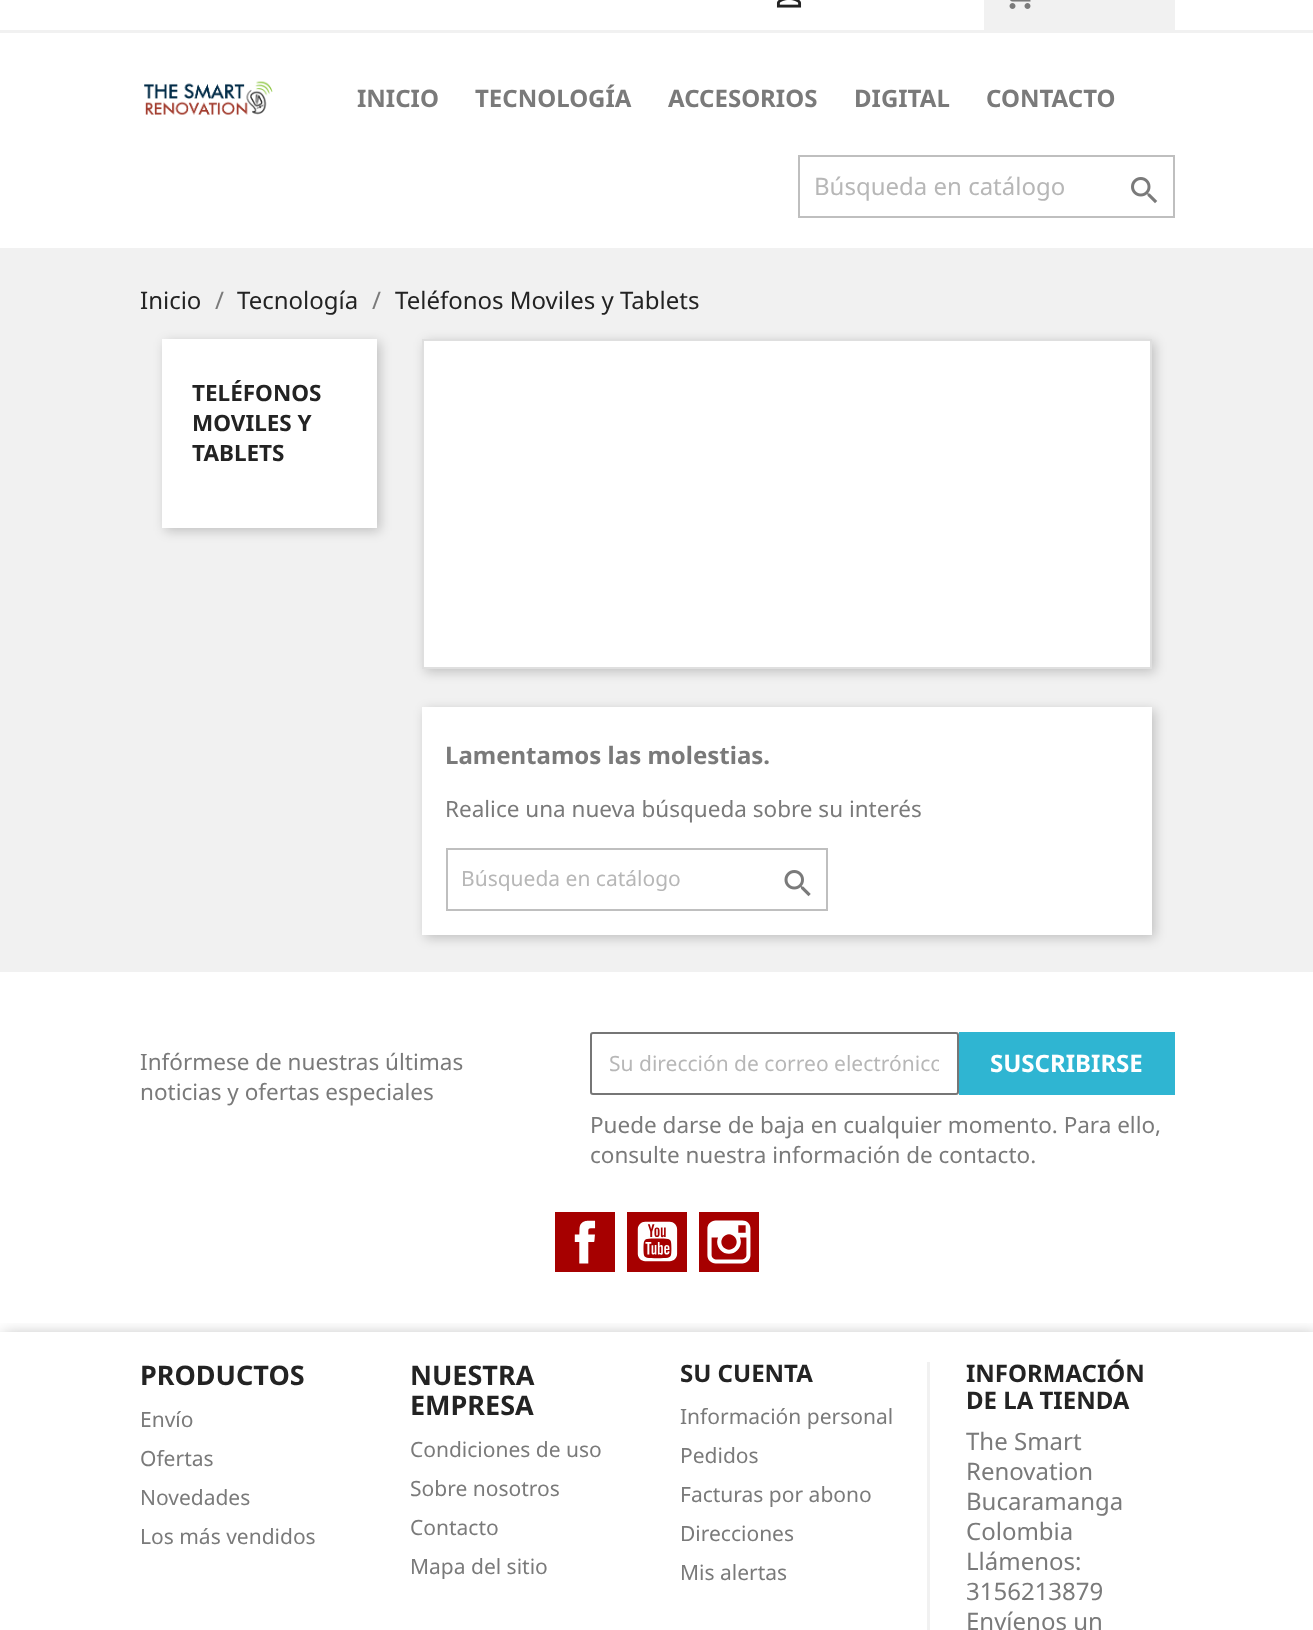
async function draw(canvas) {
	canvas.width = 1313;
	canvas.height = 1630;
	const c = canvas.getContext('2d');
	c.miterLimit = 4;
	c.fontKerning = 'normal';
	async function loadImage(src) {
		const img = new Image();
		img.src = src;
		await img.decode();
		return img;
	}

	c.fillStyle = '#fff';
	c.fillRect(0, 0, 1313, 1630);
	c.fillStyle = '#f1f1f1';
	c.fillRect(0, 30, 1313, 3);
	c.drawImage(await loadImage('img1.png'), 776, 0, 26, 8);
	c.fillRect(984, 0, 191, 30);
	c.drawImage(await loadImage('img2.png'), 1009, 0, 22, 9);
	c.drawImage(await loadImage('img3.png'), 144, 81, 129, 34);
	c.font = 'bold 24px Noto Sans';
	c.fillStyle = '#7a7a7a';
	for (const [text, x, y] of [
		['INICIO', 357, 107],
		['TECNOLOGÍA', 475, 107],
		['ACCESORIOS', 668, 107],
		['DIGITAL', 854, 107],
		['CONTACTO', 986, 107],
	]) {
		c.fillText(text, x, y);
	}
	c.strokeStyle = '#bfbfbf';
	c.lineWidth = 2;
	c.strokeRect(799, 156, 375, 61);
	c.font = '24px Noto Sans';
	c.fillStyle = '#b7b7b7';
	c.fillText('Búsqueda en catálogo', 814, 195);
	c.drawImage(await loadImage('img4.png'), 1131, 177, 27, 27);
	c.fillStyle = '#f1f1f1';
	c.fillRect(0, 248, 1313, 724);
	c.fillStyle = '#232323';
	c.fillText('Inicio', 140, 309);
	c.fillStyle = '#7a7a7a';
	c.fillText('/', 215, 309);
	c.fillStyle = '#232323';
	c.fillText('Tecnología', 237, 309);
	c.fillStyle = '#7a7a7a';
	c.fillText('/', 372, 309);
	c.fillStyle = '#232323';
	c.fillText('Teléfonos Moviles y Tablets', 395, 309);
	c.fillStyle = '#00000033';
	c.filter = 'blur(6px)';
	c.beginPath();
	c.rect(165, 342, 215, 189);
	c.fill();
	c.filter = 'none';
	c.fillStyle = '#fff';
	c.fillRect(162, 339, 215, 189);
	c.font = 'bold 22.5px Noto Sans';
	c.fillStyle = '#232323';
	for (const [text, x, y] of [
		['TELÉFONOS', 192, 401],
		['MOVILES Y', 192, 431],
		['TABLETS', 192, 461],
	]) {
		c.fillText(text, x, y);
	}
	c.fillStyle = '#00000033';
	c.filter = 'blur(6px)';
	c.beginPath();
	c.rect(425, 342, 730, 330);
	c.fill();
	c.filter = 'none';
	c.fillStyle = '#fff';
	c.beginPath();
	c.rect(423, 340, 728, 328);
	c.fill();
	c.strokeStyle = '#dfdfdf';
	c.stroke();
	c.fillStyle = '#00000033';
	c.filter = 'blur(6px)';
	c.beginPath();
	c.rect(425, 710, 730, 228);
	c.fill();
	c.filter = 'none';
	c.fillStyle = '#fff';
	c.fillRect(422, 707, 730, 228);
	c.font = 'bold 24px Noto Sans';
	c.fillStyle = '#7a7a7a';
	c.fillText('Lamentamos las molestias.', 445, 764);
	c.font = '22.5px Noto Sans';
	c.fillText('Realice una nueva búsqueda sobre su interés', 445, 817);
	c.strokeStyle = '#bfbfbf';
	c.strokeRect(447, 849, 380, 61);
	c.font = '21px Noto Sans';
	c.fillStyle = '#b7b7b7';
	c.fillText('Búsqueda en catálogo', 461, 886);
	c.drawImage(await loadImage('img5.png'), 784, 870, 27, 27);
	c.font = '22.5px Noto Sans';
	c.fillStyle = '#7a7a7a';
	c.fillText('Infórmese de nuestras últimas', 140, 1070);
	c.fillText('noticias y ofertas especiales', 140, 1100);
	c.beginPath();
	c.roundRect(591, 1033, 367, 61, 2);
	c.strokeStyle = '#767676';
	c.stroke();
	c.save();
	c.beginPath();
	c.rect(609, 1049, 330, 28);
	c.clip();
	c.font = '21px Noto Sans';
	c.fillStyle = '#b7b7b7';
	c.fillText('Su dirección de correo electrónico', 609, 1071);
	c.restore();
	c.fillStyle = '#2fb5d2';
	c.fillRect(959, 1032, 216, 63);
	c.font = 'bold 24px Noto Sans';
	c.fillStyle = '#fff';
	c.fillText('SUSCRIBIRSE', 990, 1072);
	c.font = '22.5px Noto Sans';
	c.fillStyle = '#7a7a7a';
	c.fillText('Puede darse de baja en cualquier momento. Para ello,', 590, 1133);
	c.fillText('consulte nuestra información de contacto.', 590, 1163);
	c.fillStyle = '#a60000';
	c.fillRect(555, 1212, 60, 60);
	c.drawImage(await loadImage('img6.png'), 574, 1220, 22, 44);
	c.fillRect(627, 1212, 60, 60);
	c.drawImage(await loadImage('img7.png'), 637, 1221, 41, 41);
	c.fillRect(699, 1212, 60, 60);
	c.drawImage(await loadImage('img8.png'), 707, 1220, 44, 44);
	c.save();
	c.beginPath();
	c.rect(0, 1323, 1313, 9);
	c.clip();
	c.fillStyle = '#0000004d';
	c.filter = 'blur(8px)';
	c.beginPath();
	c.rect(3, 1335, 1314, 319);
	c.fill();
	c.filter = 'none';
	c.restore();
	c.font = 'bold 27px Noto Sans';
	c.fillStyle = '#232323';
	c.fillText('PRODUCTOS', 140, 1385);
	c.font = '21px Noto Sans';
	c.fillStyle = '#7a7a7a';
	for (const [text, x, y] of [
		['Envío', 140, 1427],
		['Ofertas', 140, 1466],
		['Novedades', 140, 1505],
		['Los más vendidos', 140, 1544],
	]) {
		c.fillText(text, x, y);
	}
	c.font = 'bold 27px Noto Sans';
	c.fillStyle = '#232323';
	c.fillText('NUESTRA', 410, 1385);
	c.fillText('EMPRESA', 410, 1415);
	c.font = '21px Noto Sans';
	c.fillStyle = '#7a7a7a';
	for (const [text, x, y] of [
		['Condiciones de uso', 410, 1457],
		['Sobre nosotros', 410, 1496],
		['Contacto', 410, 1535],
		['Mapa del sitio', 410, 1574],
	]) {
		c.fillText(text, x, y);
	}
	c.font = 'bold 24px Noto Sans';
	c.fillStyle = '#232323';
	c.fillText('SU CUENTA', 680, 1382);
	c.font = '21px Noto Sans';
	c.fillStyle = '#7a7a7a';
	for (const [text, x, y] of [
		['Información personal', 680, 1424],
		['Pedidos', 680, 1463],
		['Facturas por abono', 680, 1502],
		['Direcciones', 680, 1541],
		['Mis alertas', 680, 1580],
	]) {
		c.fillText(text, x, y);
	}
	c.fillStyle = '#f1f1f1';
	c.fillRect(927, 1362, 3, 268);
	c.font = 'bold 24px Noto Sans';
	c.fillStyle = '#232323';
	c.fillText('INFORMACIÓN', 966, 1382);
	c.fillText('DE LA TIENDA', 966, 1409);
	c.font = '24px Noto Sans';
	c.fillStyle = '#7a7a7a';
	for (const [text, x, y] of [
		['The Smart', 966, 1450],
		['Renovation', 966, 1480],
		['Bucaramanga', 966, 1510],
		['Colombia', 966, 1540],
		['Llámenos:', 966, 1570],
		['3156213879', 966, 1600],
		['Envíenos un', 966, 1630],
	]) {
		c.fillText(text, x, y);
	}
}

draw(document.querySelector('canvas'));
